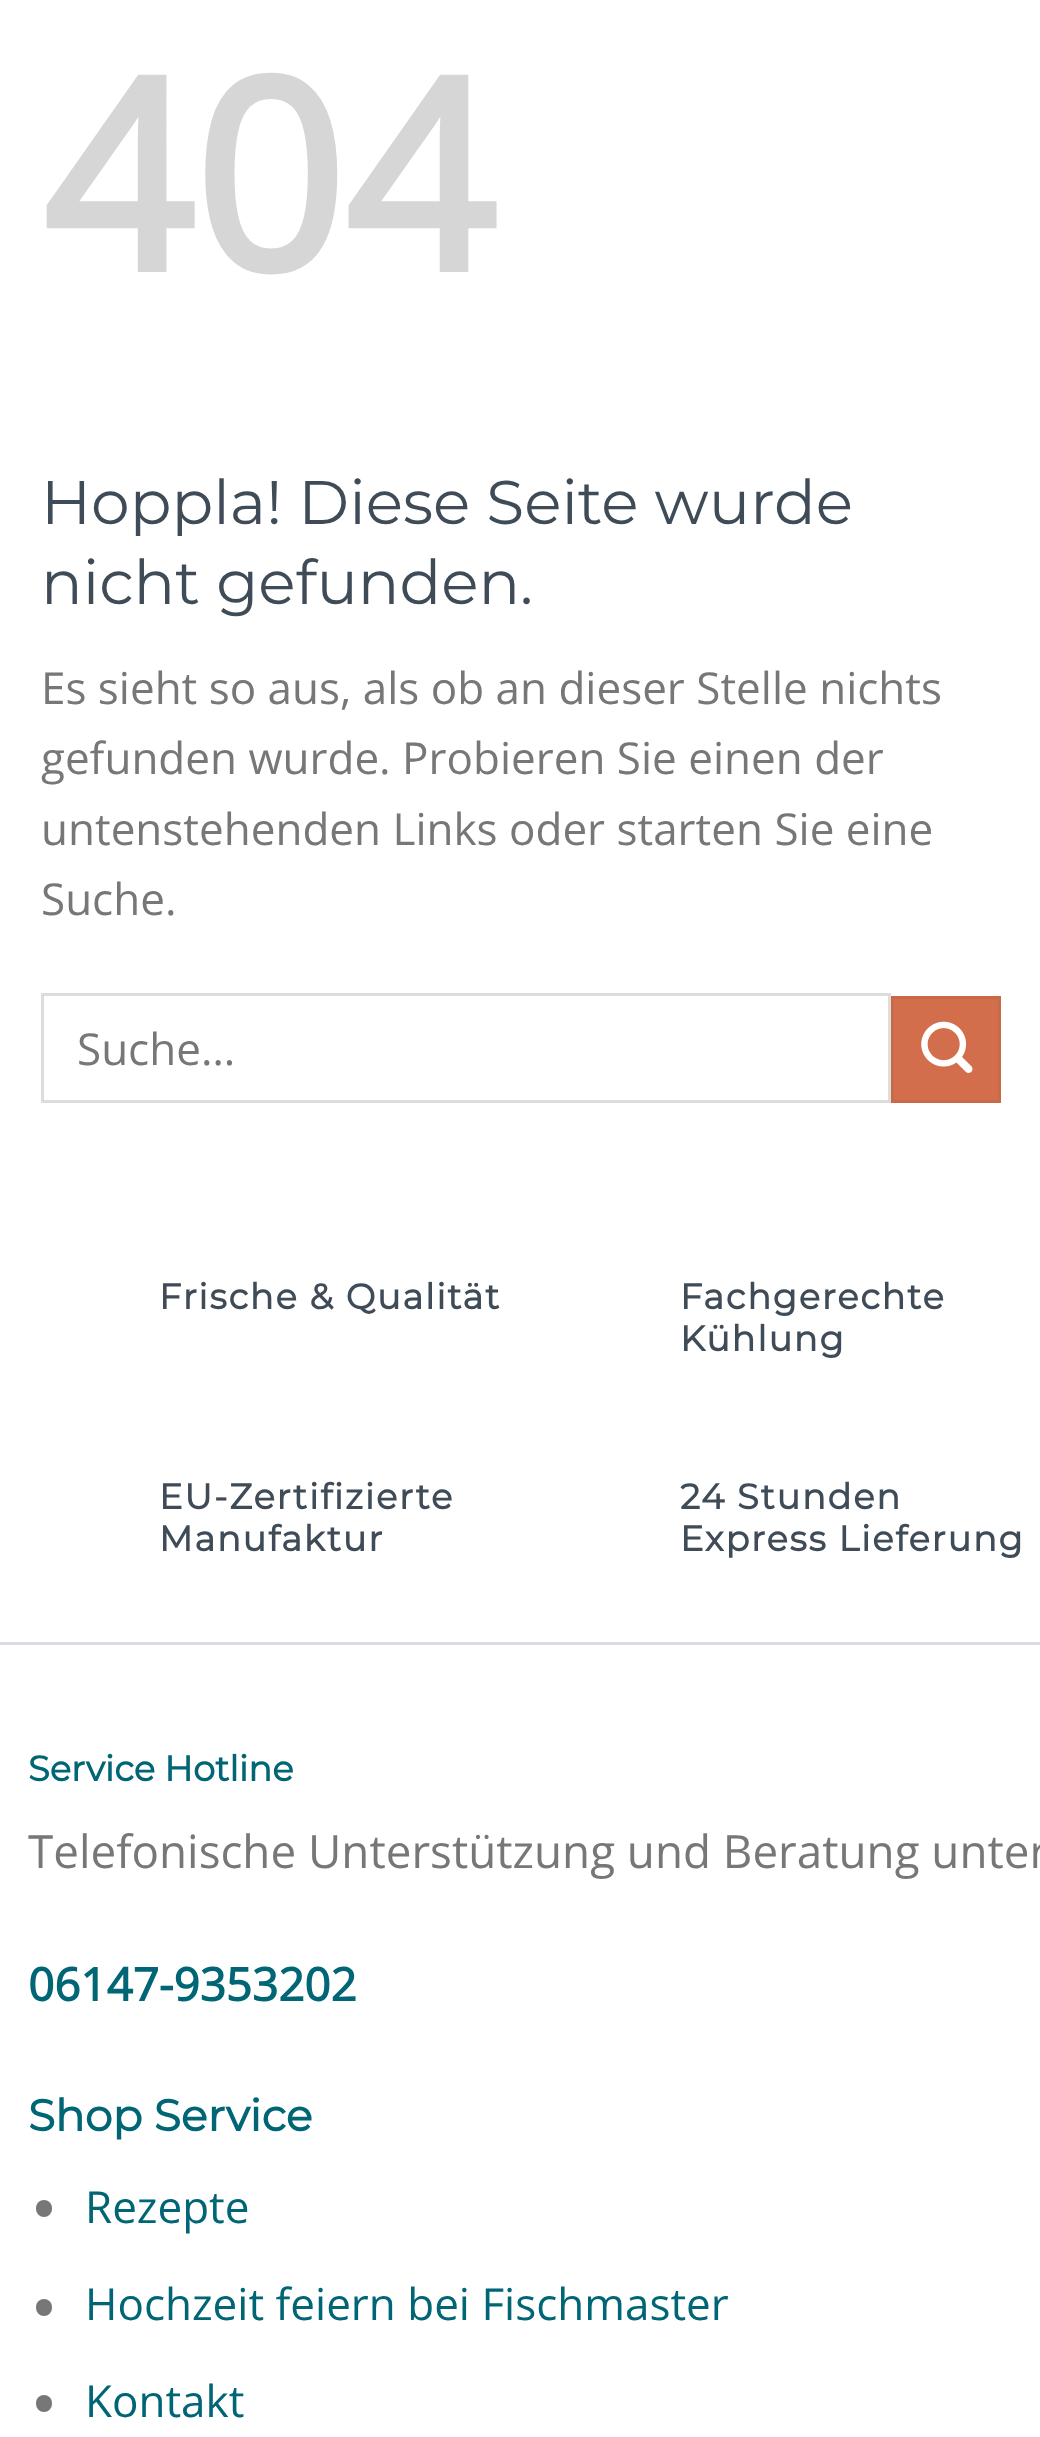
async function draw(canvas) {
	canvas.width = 1040;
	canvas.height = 2437;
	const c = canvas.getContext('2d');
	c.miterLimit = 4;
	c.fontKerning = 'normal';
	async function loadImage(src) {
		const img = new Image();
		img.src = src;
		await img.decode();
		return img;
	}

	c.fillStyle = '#fff';
	c.fillRect(0, 0, 1040, 2437);
	c.font = 'bold 264px Open Sans';
	c.fillStyle = '#d6d6d6';
	c.fillText('404', 41, 272);
	c.font = '100 61.6px Montserrat';
	c.fillStyle = '#3f4c58';
	c.fillText('Hoppla! Diese Seite wurde', 41, 524);
	c.fillText('nicht gefunden.', 41, 604);
	c.font = '44px Open Sans';
	c.fillStyle = '#777';
	for (const [text, x, y] of [
		['Es sieht so aus, als ob an dieser Stelle nichts', 41, 704],
		['gefunden wurde. Probieren Sie einen der', 41, 774],
		['untenstehenden Links oder starten Sie eine', 41, 845],
		['Suche.', 41, 915],
	]) {
		c.fillText(text, x, y);
	}
	c.strokeStyle = '#ddd';
	c.lineWidth = 3;
	c.strokeRect(42.5, 994.5, 847, 107);
	c.fillText('Suche…', 77, 1065);
	c.fillStyle = '#d26e4b';
	c.beginPath();
	c.rect(892.5, 997.5, 107, 104);
	c.fill();
	c.strokeStyle = '#c86947';
	c.stroke();
	c.drawImage(await loadImage('img1.png'), 921, 1021, 52, 52);
	c.fillStyle = '#dadae5';
	c.fillRect(0, 1642, 1040, 3);
	c.letterSpacing = '1.75px';
	c.font = 'bold 35.25px Montserrat';
	c.fillStyle = '#3f4c58';
	for (const [text, x, y] of [
		['Frische & Qualität', 159, 1309],
		['Fachgerechte', 680, 1309],
		['Kühlung', 680, 1351],
		['EU-Zertifizierte', 159, 1509],
		['Manufaktur', 159, 1551],
		['24 Stunden', 680, 1509],
		['Express Lieferung', 680, 1551],
	]) {
		c.fillText(text, x, y);
	}
	c.letterSpacing = '0px';
	c.fillStyle = '#006575';
	c.fillText('Service Hotline', 28, 1781);
	c.font = '45.75px Open Sans';
	c.fillStyle = '#777';
	c.fillText('Telefonische Unterstützung und Beratung unter', 28, 1868);
	c.font = 'bold 45.75px Open Sans';
	c.fillStyle = '#006575';
	c.fillText('06147-9353202', 28, 2001);
	c.font = 'bold 44px Montserrat';
	c.fillText('Shop Service', 28, 2131);
	c.fillStyle = '#777';
	c.beginPath();
	c.roundRect(36, 2200, 16, 17, 8);
	c.fill();
	c.font = '44px Open Sans';
	c.fillStyle = '#006575';
	c.fillText('Rezepte', 85, 2223);
	c.fillStyle = '#777';
	c.beginPath();
	c.roundRect(36, 2299, 16, 17, 8);
	c.fill();
	c.fillStyle = '#006575';
	c.fillText('Hochzeit feiern bei Fischmaster', 85, 2320);
	c.fillStyle = '#777';
	c.beginPath();
	c.roundRect(36, 2395, 16, 17, 8);
	c.fill();
	c.fillStyle = '#006575';
	c.fillText('Kontakt', 85, 2417);
}

draw(document.querySelector('canvas'));
